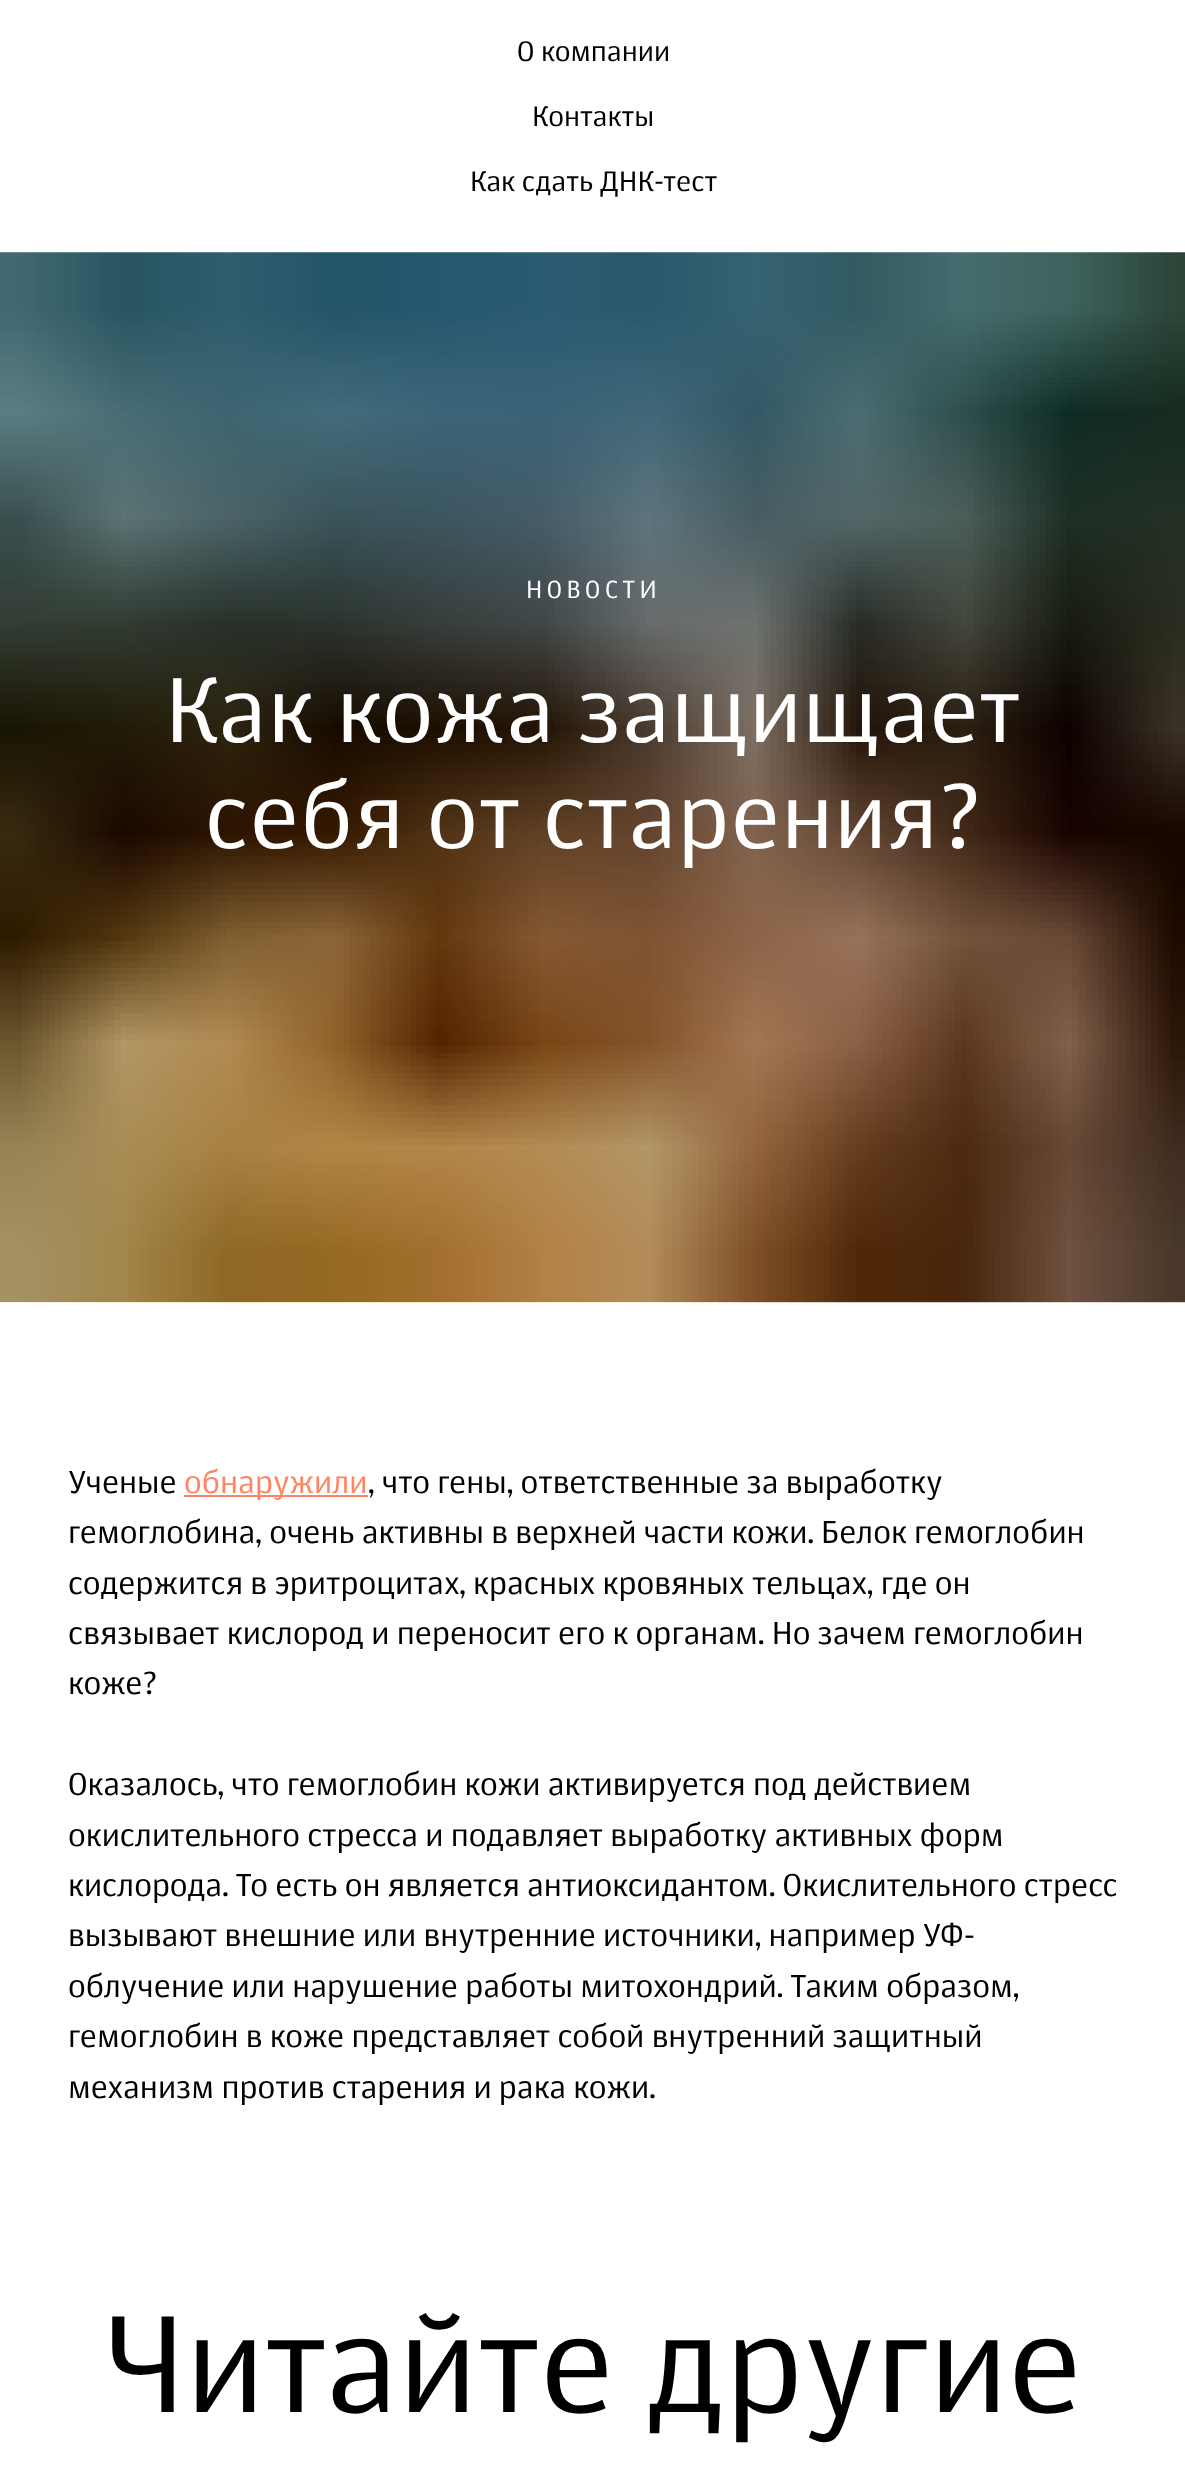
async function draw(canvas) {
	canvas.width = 1185;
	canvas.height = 2481;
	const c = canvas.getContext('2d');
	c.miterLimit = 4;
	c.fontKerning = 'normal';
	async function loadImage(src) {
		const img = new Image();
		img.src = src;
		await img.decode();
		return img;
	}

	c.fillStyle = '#fff';
	c.fillRect(0, 0, 1185, 2481);
	c.font = '28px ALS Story';
	c.fillStyle = '#000';
	for (const [text, x, y] of [
		['О компании', 517, 61],
		['Контакты', 532, 126],
		['Как сдать ДНК-тест', 470, 191],
	]) {
		c.fillText(text, x, y);
	}
	c.drawImage(await loadImage('img1.png'), 0, 252, 1185, 1051);
	c.letterSpacing = '4.5px';
	c.font = '24.5px ALS Story';
	c.fillStyle = '#fff';
	c.fillText('НОВОСТИ', 526, 598);
	c.letterSpacing = '0.9px';
	c.font = '91px ALS Story';
	c.fillText('Как кожа защищает', 165, 742);
	c.fillText('себя от старения?', 205, 848);
	c.letterSpacing = '0px';
	c.font = '31.5px ALS Story';
	c.fillStyle = '#000';
	c.fillText('Ученые', 68, 1493);
	c.fillStyle = '#ff8562';
	c.fillRect(184, 1495, 184, 2);
	c.fillText('обнаружили', 184, 1493);
	c.fillStyle = '#000';
	for (const [text, x, y] of [
		[', что гены, ответственные за выработку', 368, 1493],
		['гемоглобина, очень активны в верхней части кожи. Белок гемоглобин', 68, 1543],
		['содержится в эритроцитах, красных кровяных тельцах, где он', 68, 1594],
		['связывает кислород и переносит его к органам. Но зачем гемоглобин', 68, 1644],
		['коже?', 68, 1694],
		['Оказалось, что гемоглобин кожи активируется под действием', 68, 1795],
		['окислительного стресса и подавляет выработку активных форм', 68, 1846],
		['кислорода. То есть он является антиоксидантом. Окислительного стресс', 68, 1896],
		['вызывают внешние или внутренние источники, например УФ-', 68, 1946],
		['облучение или нарушение работы митохондрий. Таким образом,', 68, 1997],
		['гемоглобин в коже представляет собой внутренний защитный', 68, 2047],
		['механизм против старения и рака кожи.', 68, 2098],
	]) {
		c.fillText(text, x, y);
	}
	c.font = '136.5px ALS Story';
	c.fillText('Читайте другие', 105, 2412);
}

draw(document.querySelector('canvas'));
